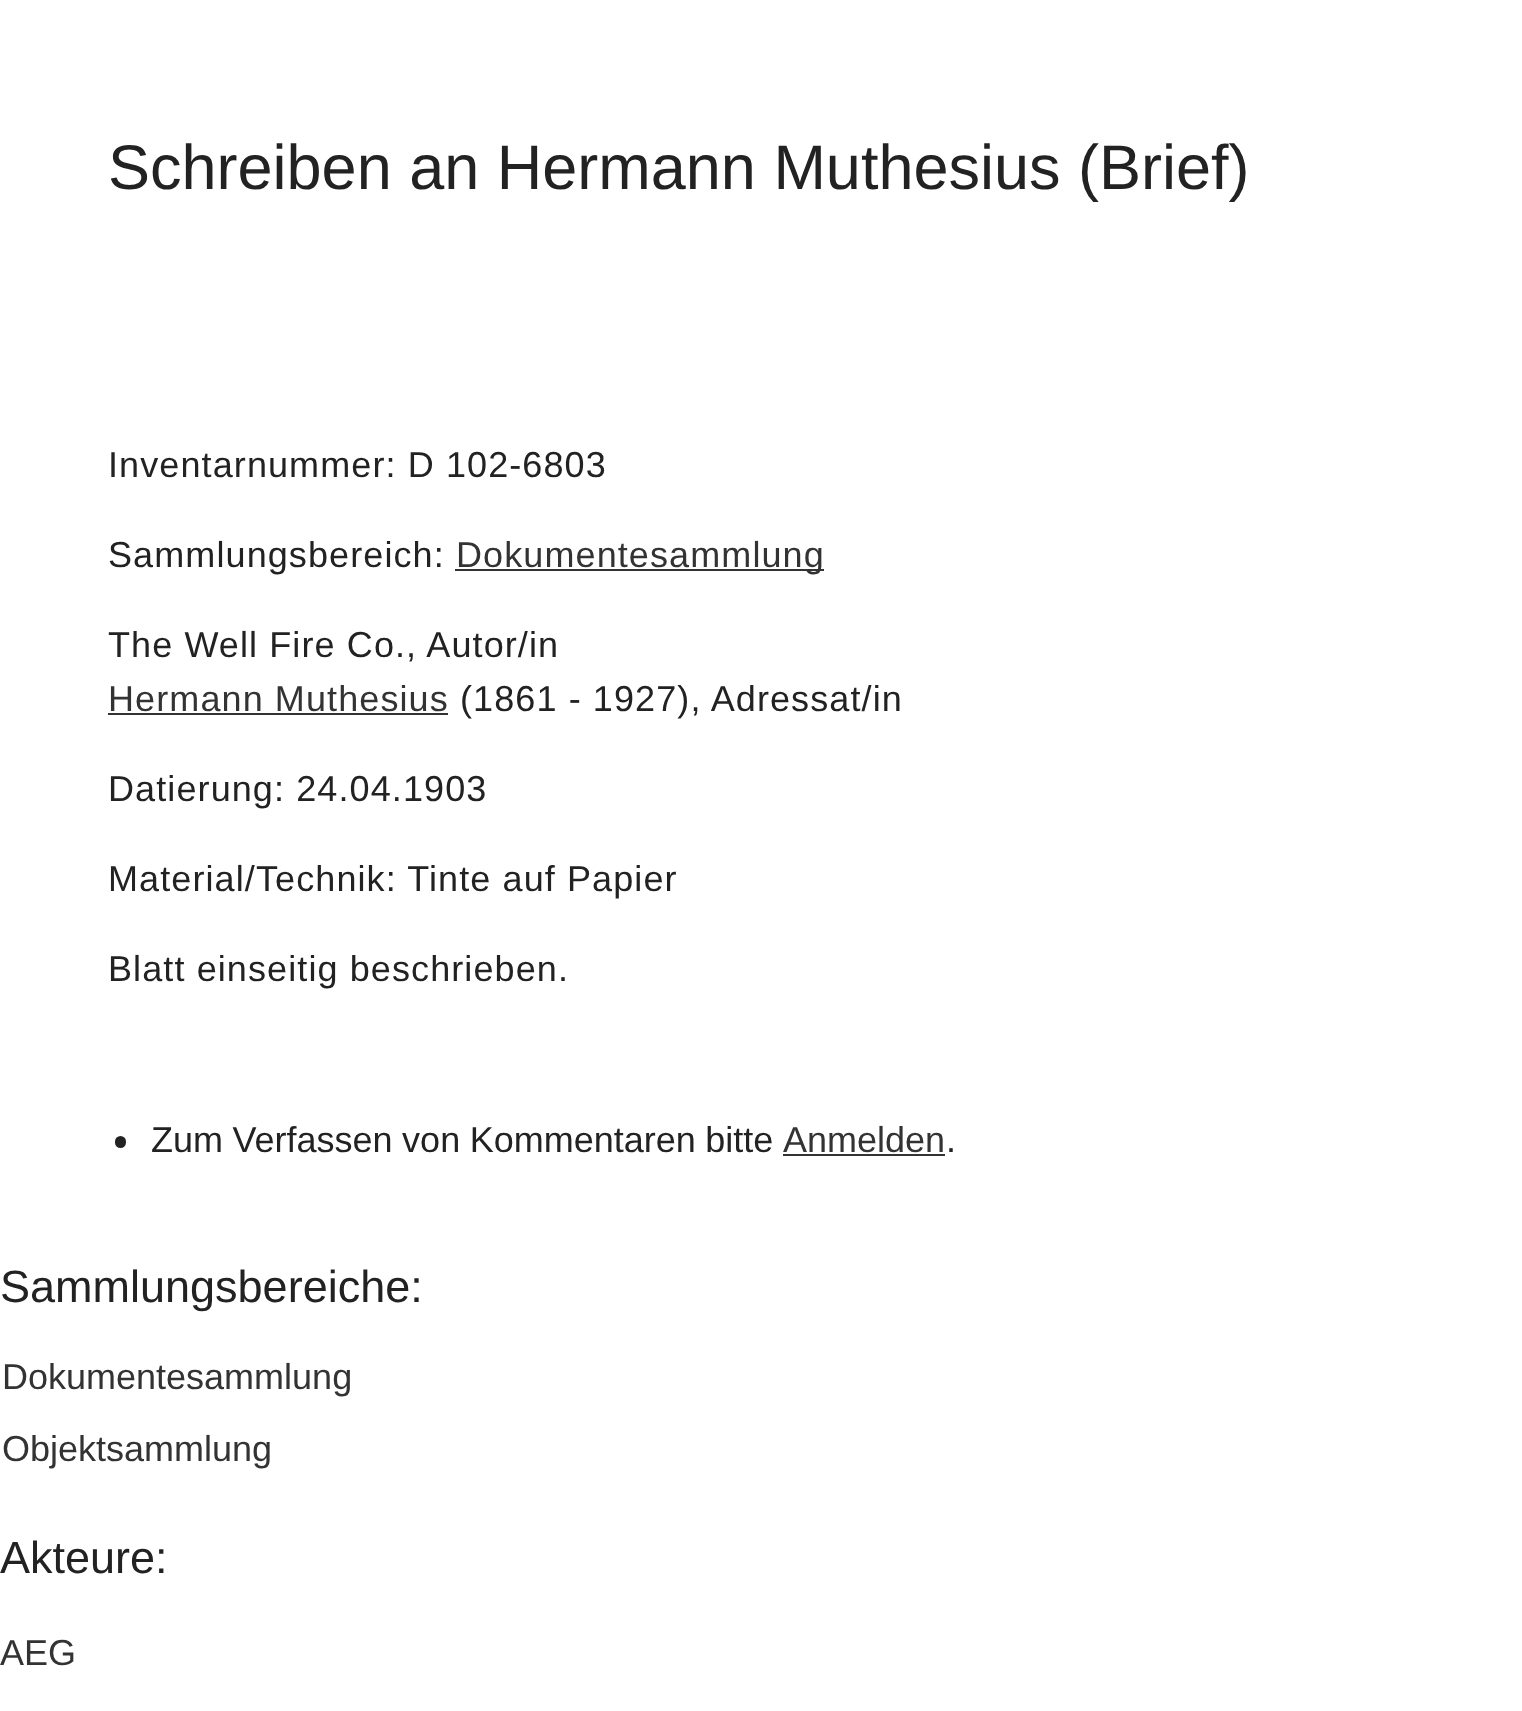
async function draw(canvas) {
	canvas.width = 1522;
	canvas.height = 1711;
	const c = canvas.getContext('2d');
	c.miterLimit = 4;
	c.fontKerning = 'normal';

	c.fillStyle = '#fff';
	c.fillRect(0, 0, 1522, 1711);
	c.font = '63px Liberation Sans';
	c.fillStyle = '#222';
	c.fillText('Schreiben an Hermann Muthesius (Brief)', 108, 189);
	c.letterSpacing = '1.1px';
	c.font = '36px Liberation Sans';
	c.fillText('Inventarnummer: D 102-6803', 108, 477);
	c.fillText('Sammlungsbereich:', 108, 567);
	c.fillStyle = '#333';
	c.fillRect(455, 569, 369, 2);
	c.fillText('Dokumentesammlung', 456, 567);
	c.fillStyle = '#222';
	c.fillText('The Well Fire Co., Autor/in', 108, 657);
	c.fillStyle = '#333';
	c.fillText('Hermann Muthesius', 108, 711);
	c.fillRect(108, 713, 340, 2);
	c.fillStyle = '#222';
	for (const [text, x, y] of [
		['(1861 - 1927), Adressat/in', 460, 711],
		['Datierung: 24.04.1903', 108, 801],
		['Material/Technik: Tinte auf Papier', 108, 891],
		['Blatt einseitig beschrieben.', 108, 981],
	]) {
		c.fillText(text, x, y);
	}
	c.beginPath();
	c.roundRect(115, 1136, 11, 12, 5.5);
	c.fill();
	c.letterSpacing = '0px';
	c.wordSpacing = '-0.5px';
	c.fillText('Zum Verfassen von Kommentaren bitte', 151, 1152);
	c.wordSpacing = '0px';
	c.fillStyle = '#333';
	c.fillText('Anmelden', 783, 1152);
	c.fillStyle = '#222';
	c.fillText('.', 946, 1152);
	c.fillStyle = '#333';
	c.fillRect(783, 1154, 162, 2);
	c.font = '45px Liberation Sans';
	c.fillStyle = '#222';
	c.fillText('Sammlungsbereiche:', 0, 1302);
	c.font = '36px Liberation Sans';
	c.fillStyle = '#333';
	c.fillText('Dokumentesammlung', 2, 1389);
	c.fillText('Objektsammlung', 2, 1461);
	c.font = '45px Liberation Sans';
	c.fillStyle = '#222';
	c.fillText('Akteure:', 0, 1573);
	c.font = '36px Liberation Sans';
	c.fillStyle = '#333';
	c.fillText('AEG', 0, 1665);
}

draw(document.querySelector('canvas'));
